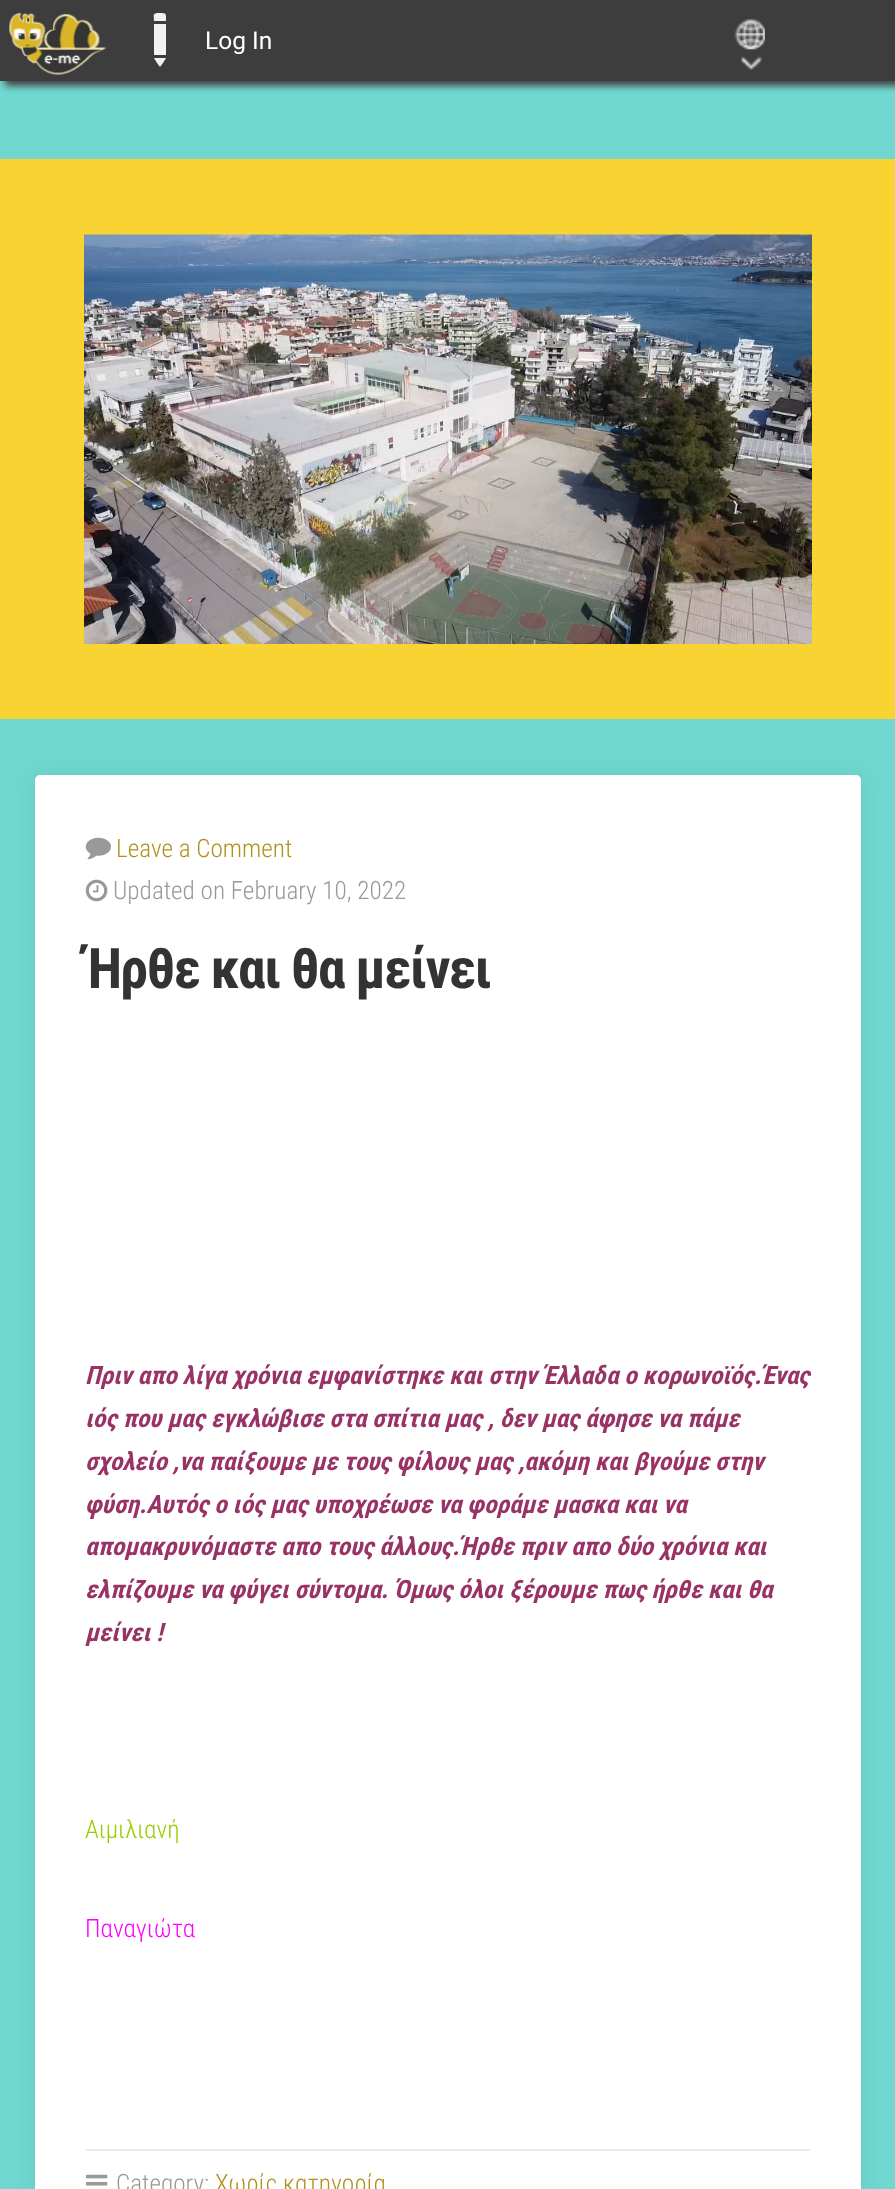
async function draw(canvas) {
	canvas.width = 895;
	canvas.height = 2189;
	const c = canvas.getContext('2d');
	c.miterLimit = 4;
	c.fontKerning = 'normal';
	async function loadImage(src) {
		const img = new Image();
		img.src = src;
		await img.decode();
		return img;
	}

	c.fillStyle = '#70d8d1';
	c.fillRect(0, 0, 895, 2189);
	c.fillStyle = '#444';
	c.filter = 'blur(3.5px)';
	c.beginPath();
	c.rect(5, 5, 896, 81);
	c.fill();
	c.filter = 'none';
	c.fillStyle = '#3d3d3d';
	c.fillRect(0, 0, 895, 81);
	c.drawImage(await loadImage('img1.png'), 9, 13, 98, 62);
	c.fillStyle = '#f3f1f1';
	c.beginPath();
	c.moveTo(154, 24);
	c.lineTo(166, 24);
	c.lineTo(166, 55);
	c.lineTo(154, 55);
	c.closePath();
	c.moveTo(163, 63);
	c.lineTo(166, 58);
	c.lineTo(154, 58);
	c.lineTo(157, 63);
	c.closePath();
	c.moveTo(157, 63);
	c.lineTo(160, 67);
	c.lineTo(163, 63);
	c.closePath();
	c.moveTo(166, 21);
	c.bezierCurveTo(166, 13, 167, 13, 159, 13);
	c.bezierCurveTo(152, 13, 154, 15, 154, 21);
	c.closePath();
	c.fill();
	c.font = '24.5px Roboto';
	c.fillStyle = '#fff';
	c.fillText('Log In', 205, 49);
	c.drawImage(await loadImage('img2.png'), 734, 18, 31, 52);
	c.fillStyle = '#f9d332';
	c.fillRect(0, 159, 895, 560);
	c.drawImage(await loadImage('img3.png'), 84, 234, 728, 410);
	c.fillStyle = '#00000014';
	c.filter = 'blur(10.5px)';
	c.beginPath();
	c.roundRect(35, 775, 826, 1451, 5);
	c.fill();
	c.filter = 'none';
	c.fillStyle = '#fff';
	c.beginPath();
	c.roundRect(35, 775, 826, 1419, 5);
	c.fill();
	c.drawImage(await loadImage('img4.png'), 85, 837, 26, 23);
	c.font = '300 25.2px Roboto Condensed';
	c.fillStyle = '#af9219';
	c.fillText('Leave a Comment', 116, 857);
	c.drawImage(await loadImage('img5.png'), 85, 879, 23, 23);
	c.fillStyle = '#999';
	c.fillText('Updated on February 10, 2022', 113, 899);
	c.letterSpacing = '-1.75px';
	c.font = 'bold 56px Roboto Condensed';
	c.fillStyle = '#333';
	c.fillText('Ήρθε και θα μείνει', 85, 988);
	c.letterSpacing = '0px';
	c.font = 'italic bold 25.2px Roboto Condensed';
	c.fillStyle = '#936';
	for (const [text, x, y] of [
		['Πριν απο λίγα χρόνια εμφανίστηκε και στην Έλλαδ', 85, 1384],
		['α ο κορωνοϊός.Ένας', 606, 1384],
		['ιός που μας εγκλώβισε στα σπίτια μας , δεν μας άφησε να πάμε', 85, 1427],
		['σχολείο ,να παίξουμε με τους φίλους μας ,ακόμη και βγούμε στην', 85, 1470],
		['φύση.Αυτός ο ιός μας υποχρέωσε να φοράμε μασκα και να', 85, 1513],
		['απομακρυνόμαστε απο τους άλλους.Ήρθε πριν απο δύο χρόνια και', 85, 1555],
		['ελπίζουμε να φύγει σύντομα. Όμως όλοι ξέρουμε πως ήρθε και θα', 85, 1598],
		['μείνει !', 85, 1641],
	]) {
		c.fillText(text, x, y);
	}
	c.font = '300 25.2px Roboto Condensed';
	c.fillStyle = '#9c0';
	c.fillText('Αιμιλιανή', 85, 1838);
	c.fillStyle = '#f0f';
	c.fillText('Παναγιώτα', 85, 1937);
	c.fillStyle = '#ebebeb';
	c.fillRect(86, 2149, 724, 2);
	c.drawImage(await loadImage('img6.png'), 86, 2174, 22, 12);
	c.fillStyle = '#999';
	c.fillText('Category:', 116, 2192);
	c.fillStyle = '#af9219';
	c.fillText('Χωρίς κατηγορία', 215, 2192);
}

draw(document.querySelector('canvas'));
